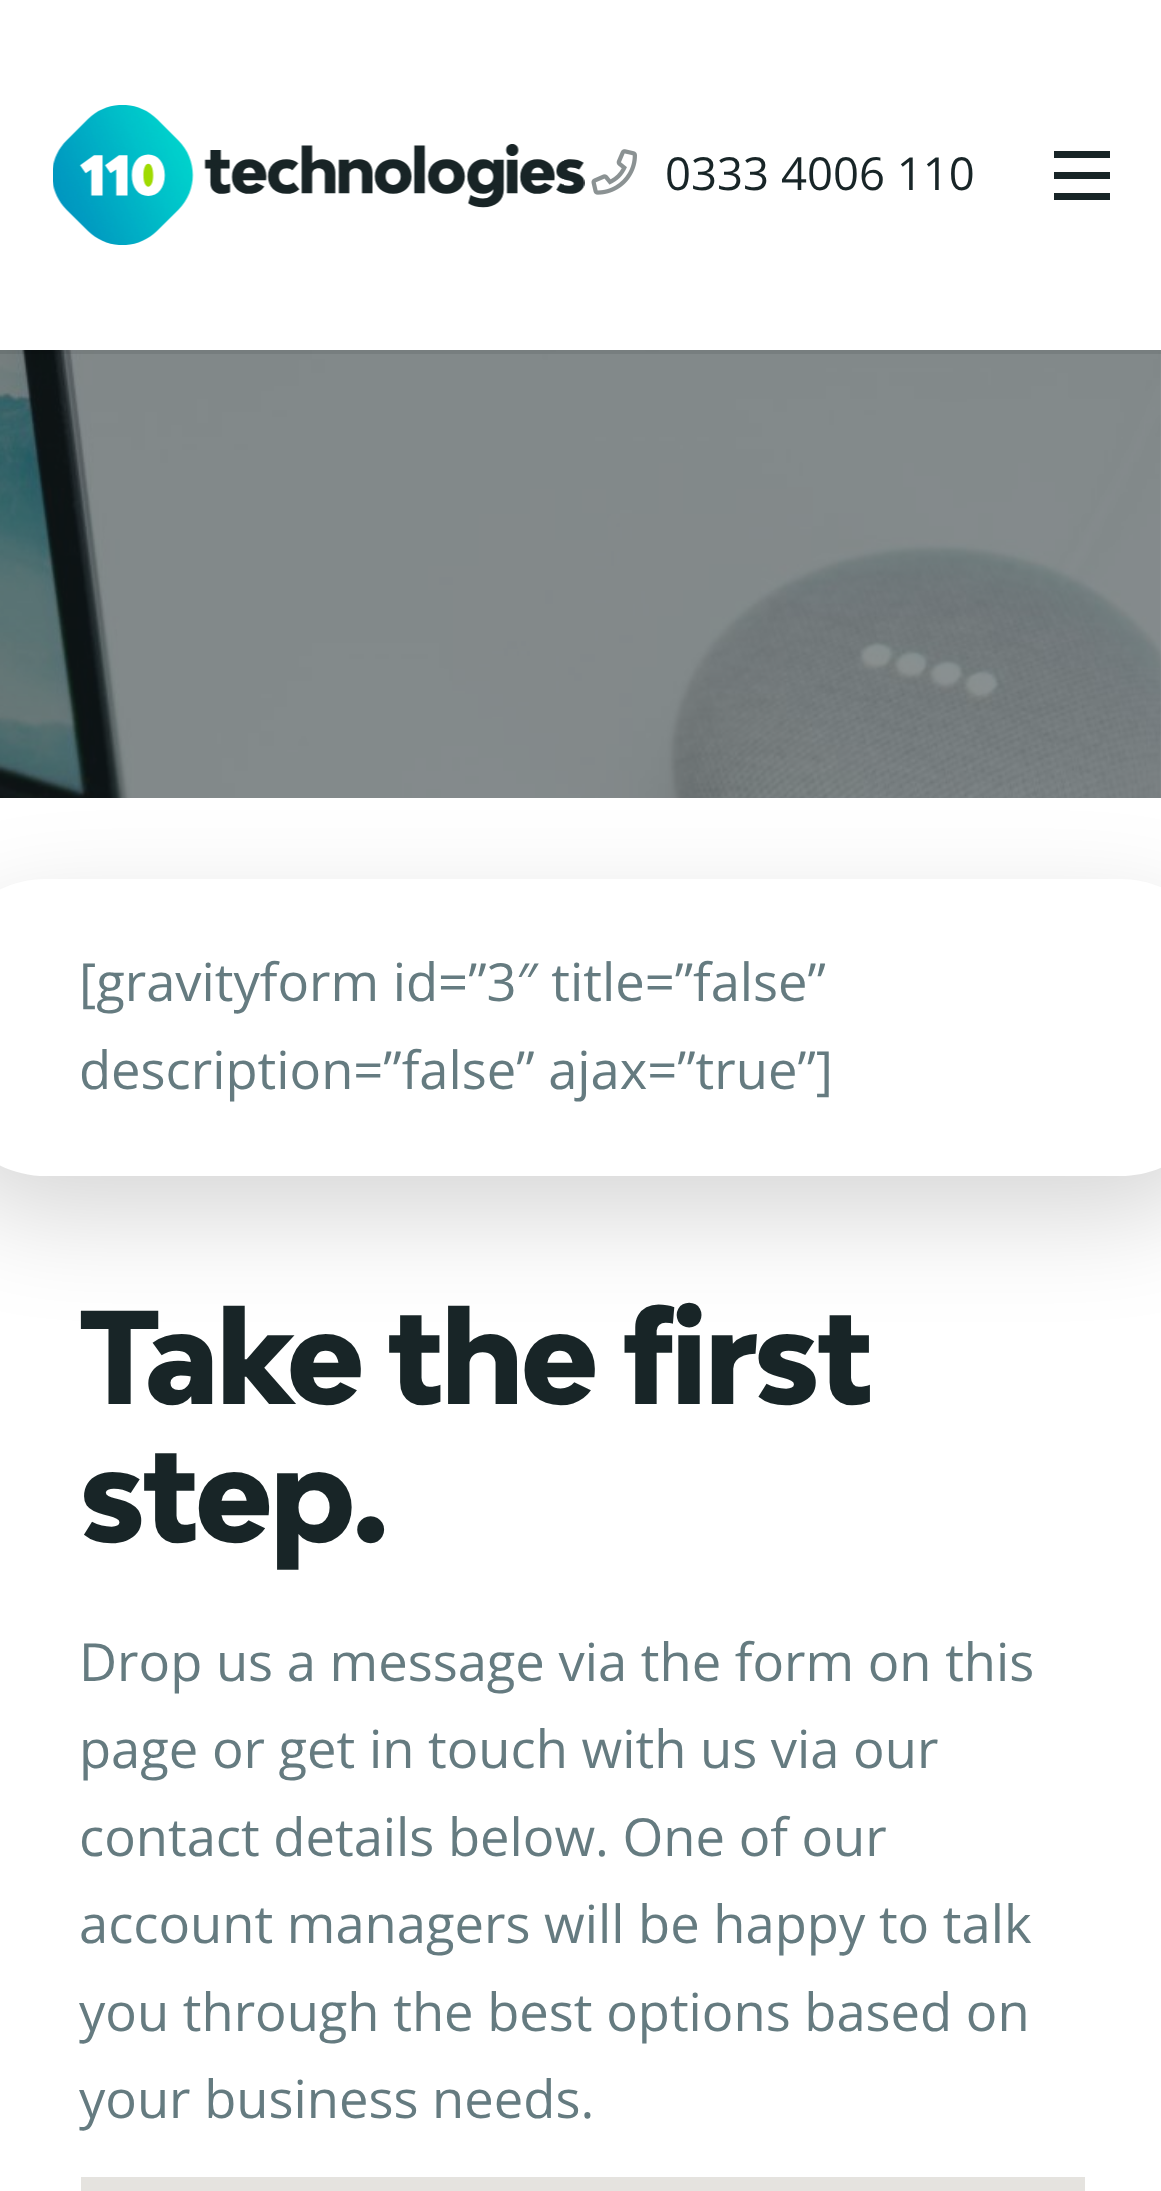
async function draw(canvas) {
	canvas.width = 1161;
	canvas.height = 2191;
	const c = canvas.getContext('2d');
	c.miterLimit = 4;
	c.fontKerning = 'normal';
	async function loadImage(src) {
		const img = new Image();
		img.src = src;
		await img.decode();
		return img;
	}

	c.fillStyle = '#fff';
	c.fillRect(0, 0, 1161, 2191);
	c.drawImage(await loadImage('img3.png'), 0, 350, 1161, 448);
	c.fillStyle = '#00000014';
	c.fillRect(0, 350, 1161, 4);
	c.drawImage(await loadImage('img1.png'), 53, 105, 532, 140);
	c.drawImage(await loadImage('img2.png'), 591, 149, 46, 46);
	c.font = '45.5px Open Sans';
	c.fillStyle = '#182527';
	c.fillText('0333 4006 110', 665, 190);
	for (const [x, y, w, h, color] of [
		[1054, 172, 56, 7, '#182527'],
		[1054, 151, 56, 7, '#182527'],
		[1054, 193, 56, 7, '#182527'],
	]) {
		c.fillStyle = color;
		c.fillRect(x, y, w, h);
	}
	c.save();
	c.beginPath();
	c.moveTo(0, 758);
	c.lineTo(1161, 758);
	c.lineTo(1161, 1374);
	c.lineTo(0, 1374);
	c.closePath();
	c.moveTo(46, 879);
	c.lineTo(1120, 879);
	c.bezierCurveTo(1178, 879, 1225, 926, 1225, 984);
	c.lineTo(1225, 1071);
	c.bezierCurveTo(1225, 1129, 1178, 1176, 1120, 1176);
	c.lineTo(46, 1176);
	c.bezierCurveTo(-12, 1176, -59, 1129, -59, 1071);
	c.lineTo(-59, 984);
	c.bezierCurveTo(-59, 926, -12, 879, 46, 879);
	c.closePath();
	c.clip('evenodd');
	c.fillStyle = '#00000029';
	c.filter = 'blur(52.5px)';
	c.beginPath();
	c.roundRect(-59, 917, 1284, 298, 105);
	c.fill();
	c.filter = 'none';
	c.restore();
	c.font = '52.5px Open Sans';
	c.fillStyle = '#657b80';
	c.fillText('[gravityform id=”3″ title=”false”', 79, 1001);
	c.fillText('description=”false” ajax=”true”]', 79, 1089);
	c.letterSpacing = '-3.75px';
	c.font = '800 126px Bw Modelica';
	c.fillStyle = '#182527';
	c.fillText('Take the first', 79, 1404);
	c.fillText('step.', 79, 1542);
	c.letterSpacing = '0px';
	c.font = '52.5px Open Sans';
	c.fillStyle = '#657b80';
	for (const [text, x, y] of [
		['Drop us a message via the form on this', 79, 1681],
		['page or get in touch with us via our', 79, 1768],
		['contact details below. One of our', 79, 1856],
		['account managers will be happy to talk', 79, 1943],
		['you through the best options based on', 79, 2031],
		['your business needs.', 79, 2118],
	]) {
		c.fillText(text, x, y);
	}
	c.fillStyle = '#e5e3df';
	c.fillRect(81, 2177, 1004, 14);
}

draw(document.querySelector('canvas'));
